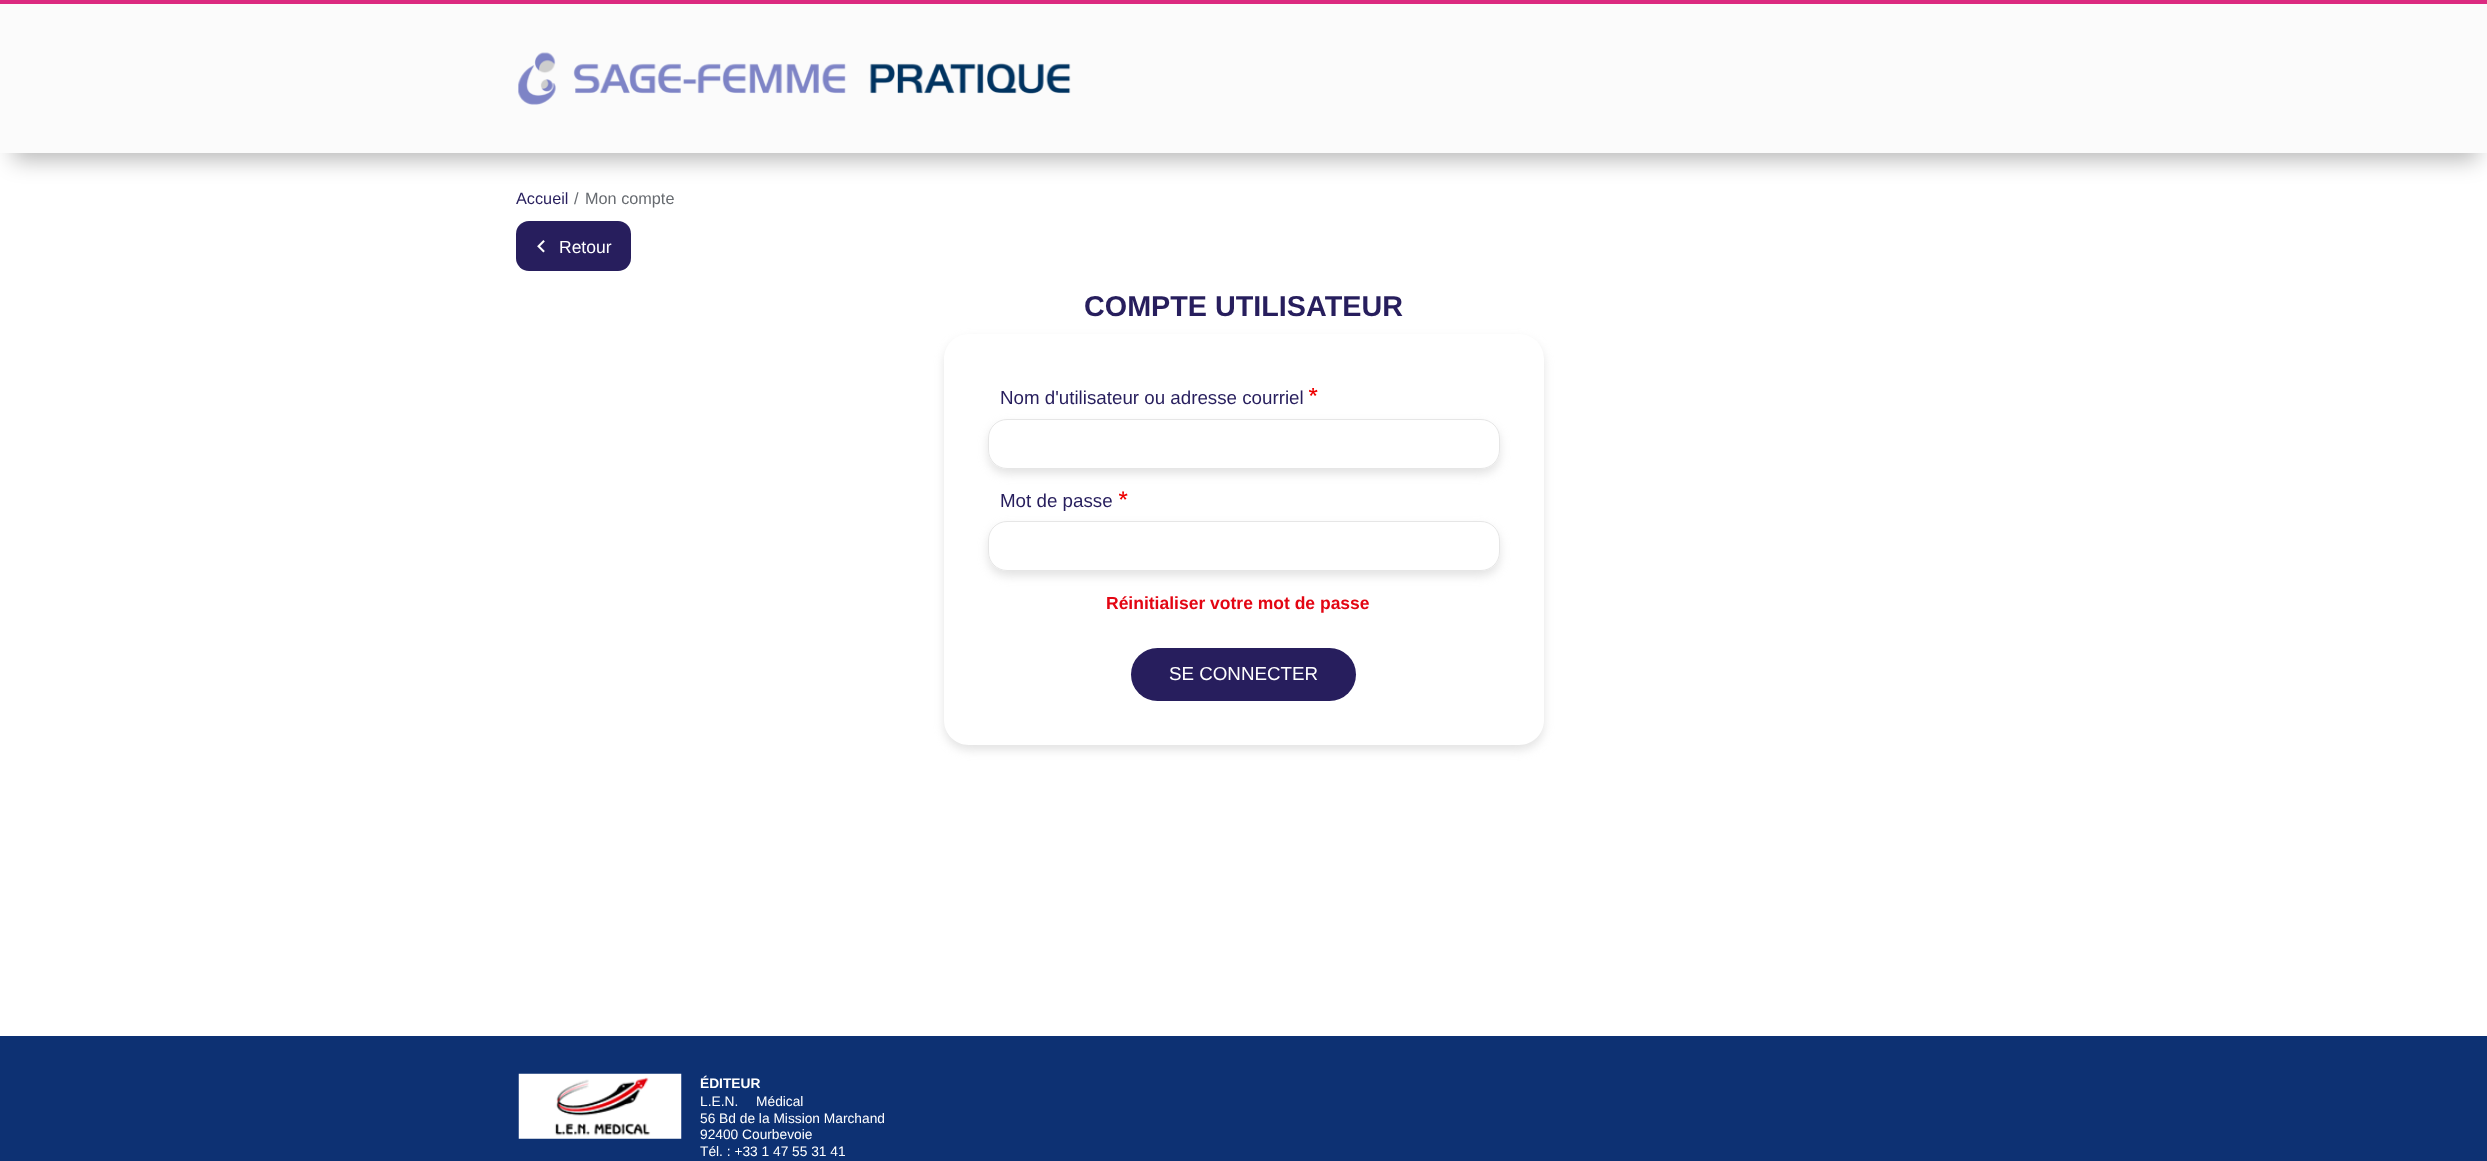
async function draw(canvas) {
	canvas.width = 2487;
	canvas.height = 1161;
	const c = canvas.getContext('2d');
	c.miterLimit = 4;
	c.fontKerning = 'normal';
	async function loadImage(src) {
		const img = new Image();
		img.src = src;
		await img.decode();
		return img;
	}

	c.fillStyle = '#fff';
	c.fillRect(0, 0, 2487, 1161);
	c.fillStyle = '#00000047';
	c.filter = 'blur(11px)';
	c.beginPath();
	c.rect(13, 30, 2465, 130);
	c.fill();
	c.filter = 'none';
	c.fillStyle = '#fbfbfb';
	c.fillRect(0, 4, 2487, 149);
	c.fillStyle = '#dc2a80';
	c.fillRect(0, 0, 2487, 4);
	c.drawImage(await loadImage('img1.png'), 518, 52, 553, 53);
	c.font = '16.25px Liberation Sans';
	c.fillStyle = '#271e5d';
	c.fillText('Accueil', 516, 204);
	c.fillStyle = '#676b70';
	c.fillText('/', 574, 204);
	c.fillText('Mon compte', 585, 204);
	c.fillStyle = '#271e5d';
	c.beginPath();
	c.roundRect(516, 221, 115, 50, 13);
	c.fill();
	c.drawImage(await loadImage('img2.png'), 537, 240, 8, 13);
	c.font = '17.5px Liberation Sans';
	c.fillStyle = '#fff';
	c.fillText('Retour', 559, 253);
	c.font = 'bold 28.75px Liberation Sans';
	c.fillStyle = '#271e5d';
	c.fillText('COMPTE UTILISATEUR', 1084, 316);
	c.save();
	c.beginPath();
	c.moveTo(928, 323);
	c.lineTo(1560, 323);
	c.lineTo(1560, 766);
	c.lineTo(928, 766);
	c.closePath();
	c.moveTo(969, 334);
	c.lineTo(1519, 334);
	c.bezierCurveTo(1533, 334, 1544, 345, 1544, 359);
	c.lineTo(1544, 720);
	c.bezierCurveTo(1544, 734, 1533, 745, 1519, 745);
	c.lineTo(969, 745);
	c.bezierCurveTo(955, 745, 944, 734, 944, 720);
	c.lineTo(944, 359);
	c.bezierCurveTo(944, 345, 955, 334, 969, 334);
	c.closePath();
	c.clip('evenodd');
	c.fillStyle = '#c8c8c880';
	c.filter = 'blur(5px)';
	c.beginPath();
	c.roundRect(944, 339, 600, 411, 25);
	c.fill();
	c.filter = 'none';
	c.restore();
	c.font = '18.75px Arimo';
	c.fillText('Nom d\'utilisateur ou adresse courriel', 1000, 404);
	c.drawImage(await loadImage('img3.png'), 1309, 388, 9, 8);
	c.save();
	c.beginPath();
	c.moveTo(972, 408);
	c.lineTo(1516, 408);
	c.lineTo(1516, 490);
	c.lineTo(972, 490);
	c.closePath();
	c.moveTo(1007, 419);
	c.lineTo(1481, 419);
	c.bezierCurveTo(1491.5, 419, 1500, 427.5, 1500, 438);
	c.lineTo(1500, 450);
	c.bezierCurveTo(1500, 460.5, 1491.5, 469, 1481, 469);
	c.lineTo(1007, 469);
	c.bezierCurveTo(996.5, 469, 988, 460.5, 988, 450);
	c.lineTo(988, 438);
	c.bezierCurveTo(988, 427.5, 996.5, 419, 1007, 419);
	c.closePath();
	c.clip('evenodd');
	c.fillStyle = '#c8c8c880';
	c.filter = 'blur(5px)';
	c.beginPath();
	c.roundRect(988, 424, 512, 50, 19);
	c.fill();
	c.filter = 'none';
	c.restore();
	c.beginPath();
	c.roundRect(988.5, 419.5, 511, 49, 18.5);
	c.strokeStyle = '#e6e6e6';
	c.stroke();
	c.fillText('Mot de passe', 1000, 507);
	c.drawImage(await loadImage('img4.png'), 1119, 491, 9, 9);
	c.save();
	c.beginPath();
	c.moveTo(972, 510);
	c.lineTo(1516, 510);
	c.lineTo(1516, 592);
	c.lineTo(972, 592);
	c.closePath();
	c.moveTo(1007, 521);
	c.lineTo(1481, 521);
	c.bezierCurveTo(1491.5, 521, 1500, 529.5, 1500, 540);
	c.lineTo(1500, 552);
	c.bezierCurveTo(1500, 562.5, 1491.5, 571, 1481, 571);
	c.lineTo(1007, 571);
	c.bezierCurveTo(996.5, 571, 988, 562.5, 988, 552);
	c.lineTo(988, 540);
	c.bezierCurveTo(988, 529.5, 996.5, 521, 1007, 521);
	c.closePath();
	c.clip('evenodd');
	c.fillStyle = '#c8c8c880';
	c.filter = 'blur(5px)';
	c.beginPath();
	c.roundRect(988, 526, 512, 50, 19);
	c.fill();
	c.filter = 'none';
	c.restore();
	c.beginPath();
	c.roundRect(988.5, 521.5, 511, 49, 18.5);
	c.stroke();
	c.font = 'bold 17.5px Arimo';
	c.fillStyle = '#e30613';
	c.fillText('Réinitialiser votre mot de passe', 1106, 609);
	c.fillStyle = '#271e5d';
	c.beginPath();
	c.roundRect(1131, 648, 225, 53, 26.5);
	c.fill();
	c.font = '18.75px Liberation Sans';
	c.fillStyle = '#fff';
	c.fillText('SE CONNECTER', 1169, 680);
	c.fillStyle = '#0d3173';
	c.fillRect(0, 1036, 2487, 125);
	c.drawImage(await loadImage('img5.png'), 518, 1073, 164, 66);
	c.font = 'bold 13.75px Arimo';
	c.fillStyle = '#fff';
	c.fillText('ÉDITEUR', 700, 1088);
	c.wordSpacing = '14px';
	c.font = '13.75px Arimo';
	c.fillText('L.E.N. Médical', 700, 1106);
	c.wordSpacing = '0px';
	for (const [text, x, y] of [
		['56 Bd de la Mission Marchand', 700, 1123],
		['92400 Courbevoie', 700, 1139],
		['Tél. : +33 1 47 55 31 41', 700, 1156],
	]) {
		c.fillText(text, x, y);
	}
}

draw(document.querySelector('canvas'));
